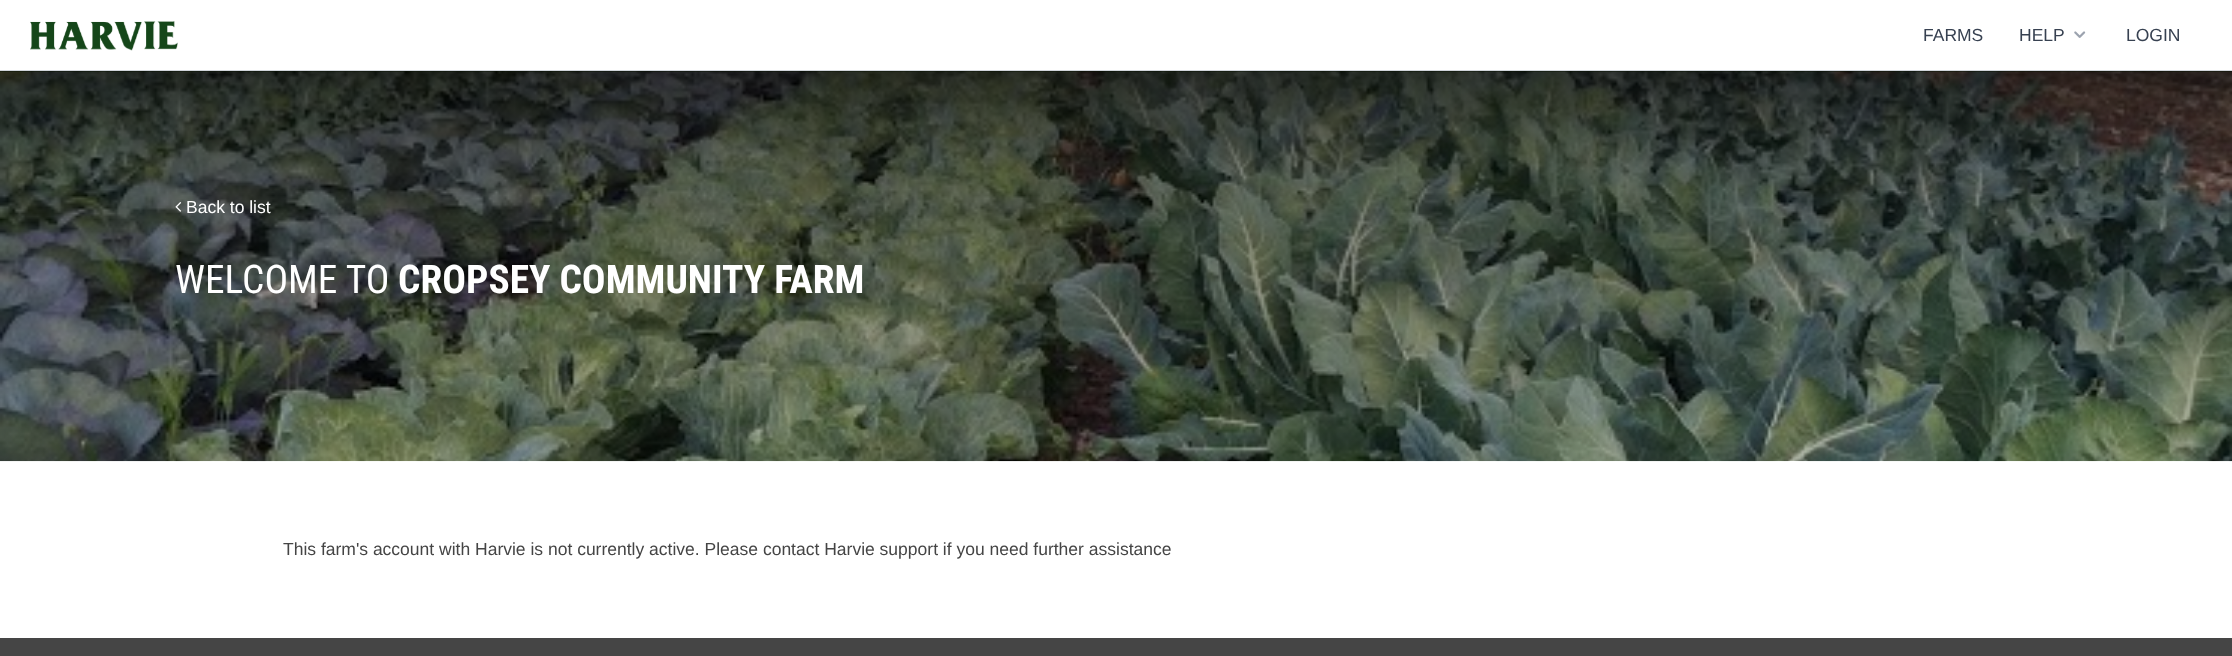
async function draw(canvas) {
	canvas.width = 2232;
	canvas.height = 656;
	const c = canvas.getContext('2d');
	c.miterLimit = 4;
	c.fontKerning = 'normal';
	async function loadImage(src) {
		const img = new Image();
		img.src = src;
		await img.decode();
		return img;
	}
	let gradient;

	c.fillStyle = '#fff';
	c.fillRect(0, 0, 2232, 656);
	c.fillStyle = '#d1d5db';
	c.fillRect(0, 70, 2232, 1);
	c.drawImage(await loadImage('img1.png'), 30, 21, 148, 30);
	c.font = '17.5px Liberation Sans';
	c.fillStyle = '#374151';
	c.fillText('FARMS', 1923, 41);
	c.fillText('HELP', 2019, 41);
	c.drawImage(await loadImage('img2.png'), 2074, 31, 12, 7);
	c.fillText('LOGIN', 2126, 41);
	c.fillStyle = '#1e4a04';
	c.fillRect(0, 71, 2232, 1);
	c.drawImage(await loadImage('img3.png'), 0, 71, 2232, 391);
	gradient = c.createLinearGradient(1116, 71, 1116, 461);
	gradient.addColorStop(0, '#000000bf');
	gradient.addColorStop(0.25, '#00000080');
	gradient.addColorStop(1, '#0000004d');
	c.fillStyle = gradient;
	c.fillRect(0, 71, 2232, 390);
	c.drawImage(await loadImage('img4.png'), 175, 202, 7, 10);
	c.fillStyle = '#fff';
	c.fillText('Back to list', 186, 213);
	c.font = '39.4px Roboto Condensed';
	c.fillText('WELCOME TO', 175, 293);
	c.font = 'bold 39.4px Roboto Condensed';
	c.fillText('CROPSEY COMMUNITY FARM', 398, 293);
	c.font = '17.5px Liberation Sans';
	c.fillStyle = '#454545';
	c.fillText('This farm\'s account with Harvie is not currently active. Please contact Harvie support if you need further assistance', 283, 555);
	c.fillRect(0, 638, 2232, 18);
}

draw(document.querySelector('canvas'));
